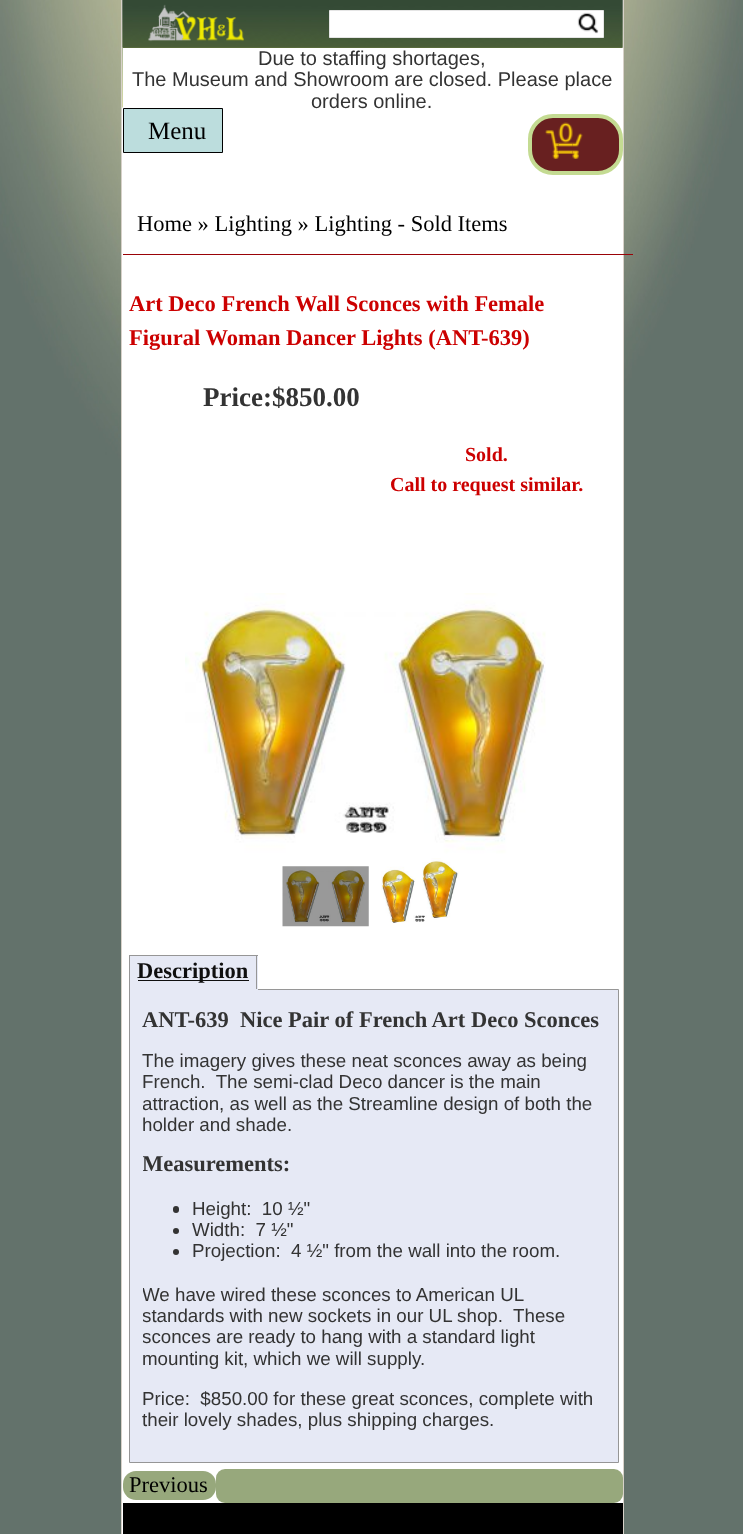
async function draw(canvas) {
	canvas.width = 743;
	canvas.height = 1534;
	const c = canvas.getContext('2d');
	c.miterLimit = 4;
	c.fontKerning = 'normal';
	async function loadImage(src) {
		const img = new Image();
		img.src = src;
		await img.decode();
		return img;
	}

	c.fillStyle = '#fff';
	c.fillRect(0, 0, 743, 1534);
	c.drawImage(await loadImage('img1.png'), 0, 0, 743, 1534);
	for (const [x, y, w, h, color] of [
		[122, 0, 501, 1534, '#fff'],
		[623, 0, 1, 1534, '#d7d1c9'],
		[121, 0, 1, 1534, '#d7d1c9'],
	]) {
		c.fillStyle = color;
		c.fillRect(x, y, w, h);
	}
	c.drawImage(await loadImage('img2.png'), 122, 0, 501, 108);
	c.drawImage(await loadImage('img3.png'), 122, 0, 501, 48);
	c.drawImage(await loadImage('img4.png'), 148, 4, 97, 38);
	c.fillStyle = '#fff';
	c.beginPath();
	c.rect(329.5, 10.5, 274, 27);
	c.fill();
	c.strokeStyle = '#e5e5e5';
	c.stroke();
	c.drawImage(await loadImage('img5.png'), 577, 12, 22, 22);
	c.fillRect(123, 48, 500, 60);
	c.font = '20px Liberation Sans';
	c.fillStyle = '#333';
	for (const [text, x, y] of [
		['Due to staffing shortages,', 258, 65],
		['The Museum and Showroom are closed. Please place', 132, 86],
		['orders online.', 311, 108],
	]) {
		c.fillText(text, x, y);
	}
	c.fillStyle = '#bcdddd';
	c.beginPath();
	c.rect(123.5, 108.5, 99, 44);
	c.fill();
	c.strokeStyle = '#000';
	c.stroke();
	c.font = '25px Liberation Serif';
	c.fillStyle = '#000';
	c.fillText('Menu', 148, 139);
	c.fillStyle = '#682020';
	c.beginPath();
	c.roundRect(530, 116, 91, 57, 23);
	c.fill();
	c.strokeStyle = '#c4db92';
	c.lineWidth = 4;
	c.stroke();
	c.drawImage(await loadImage('img6.png'), 545, 130, 14, 29);
	c.drawImage(await loadImage('img7.png'), 558, 122, 15, 32);
	c.drawImage(await loadImage('img8.png'), 572, 133, 11, 26);
	c.fillStyle = '#9a0308';
	c.fillRect(123, 254, 510, 1);
	c.font = '22.5px Liberation Serif';
	c.fillStyle = '#000';
	c.fillText('Home » Lighting » Lighting - Sold Items', 137, 231);
	c.font = 'bold 22.5px Liberation Serif';
	c.fillStyle = '#c00';
	c.fillText('Art Deco French Wall Sconces with Female', 129, 311);
	c.fillText('Figural Woman Dancer Lights (ANT-639)', 129, 345);
	c.font = 'bold 27px Liberation Serif';
	c.fillStyle = '#333';
	c.fillText('Price:$850.00', 203, 406);
	c.font = 'bold 20px Liberation Serif';
	c.fillStyle = '#c00';
	c.fillText('Sold.', 465, 461);
	c.fillText('Call to request similar.', 390, 491);
	c.drawImage(await loadImage('img9.png'), 185, 593, 361, 261);
	c.save();
	c.beginPath();
	c.moveTo(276, 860);
	c.lineTo(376, 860);
	c.lineTo(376, 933);
	c.lineTo(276, 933);
	c.closePath();
	c.moveTo(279, 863);
	c.lineTo(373, 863);
	c.lineTo(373, 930);
	c.lineTo(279, 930);
	c.closePath();
	c.clip('evenodd');
	c.fillStyle = '#0000004d';
	c.filter = 'blur(0.5px)';
	c.beginPath();
	c.rect(279, 863, 94, 67);
	c.fill();
	c.filter = 'none';
	c.restore();
	c.drawImage(await loadImage('img10.png'), 282, 866, 87, 61);
	c.drawImage(await loadImage('img11.png'), 381, 858, 78, 65);
	c.fillStyle = '#e6e9f5';
	c.fillRect(130, 956, 128, 33);
	c.fillStyle = '#969696';
	c.fillRect(129, 955, 129, 1);
	c.fillStyle = '#e6e9f5';
	c.beginPath();
	c.rect(129.5, 989.5, 489, 473);
	c.fill();
	c.strokeStyle = '#969696';
	c.lineWidth = 1;
	c.stroke();
	for (const [x, y, w, h, color] of [
		[256, 955, 1, 35, '#969696'],
		[129, 989, 129, 1, '#e6e9f5'],
		[129, 955, 1, 35, '#969696'],
		[138, 980, 111, 1, '#0f0f0f'],
	]) {
		c.fillStyle = color;
		c.fillRect(x, y, w, h);
	}
	c.font = 'bold 22.5px Liberation Serif';
	c.fillText('Description', 137, 978);
	c.fillStyle = '#333';
	c.fillText('ANT-639', 142, 1027);
	c.fillText('Nice Pair of French Art Deco Sconces', 240, 1027);
	c.font = '18.75px Liberation Sans';
	c.fillText('The imagery gives these neat sconces away as being', 142, 1067);
	c.fillText('French.  The semi-clad Deco dancer is the main', 142, 1088);
	c.save();
	c.beginPath();
	c.rect(143, 1003, 475, 446);
	c.clip();
	c.fillText('attraction, as well as the Streamline design of both the', 142, 1110);
	c.restore();
	c.fillText('holder and shade.', 142, 1131);
	c.save();
	c.beginPath();
	c.rect(143, 1003, 475, 446);
	c.clip();
	c.font = 'bold 22.5px Liberation Serif';
	c.fillText('Measurements:', 142, 1171);
	c.restore();
	c.beginPath();
	c.roundRect(173, 1206, 6, 7, 3);
	c.fill();
	c.fillText('Height:  10 ½"', 192, 1215);
	c.beginPath();
	c.arc(176, 1231, 3, 0, 2 * Math.PI);
	c.fill();
	c.fillText('Width:  7 ½"', 192, 1236);
	c.beginPath();
	c.arc(176, 1252, 3, 0, 2 * Math.PI);
	c.fill();
	c.fillText('Projection:  4 ½" from the wall into the room.', 192, 1257);
	c.save();
	c.beginPath();
	c.rect(143, 1003, 475, 446);
	c.clip();
	for (const [text, x, y] of [
		['We have wired these sconces to American UL', 142, 1301],
		['standards with new sockets in our UL shop.  These', 142, 1322],
		['sconces are ready to hang with a standard light', 142, 1343],
	]) {
		c.fillText(text, x, y);
	}
	c.restore();
	for (const [text, x, y] of [
		['mounting kit, which we will supply.', 142, 1365],
		['Price:  $850.00 for these great sconces, complete with', 142, 1405],
		['their lovely shades, plus shipping charges.', 142, 1426],
	]) {
		c.fillText(text, x, y);
	}
	c.fillStyle = '#97a87c';
	c.beginPath();
	c.roundRect(123, 1471, 93, 29, 13);
	c.fill();
	c.font = '22.5px Liberation Serif';
	c.fillStyle = '#000';
	c.fillText('Previous', 129, 1492);
	c.fillStyle = '#97a87c';
	c.beginPath();
	c.roundRect(216, 1469, 407, 34, 9);
	c.fill();
	c.fillStyle = '#000';
	c.fillRect(123, 1503, 500, 31);
}

draw(document.querySelector('canvas'));
